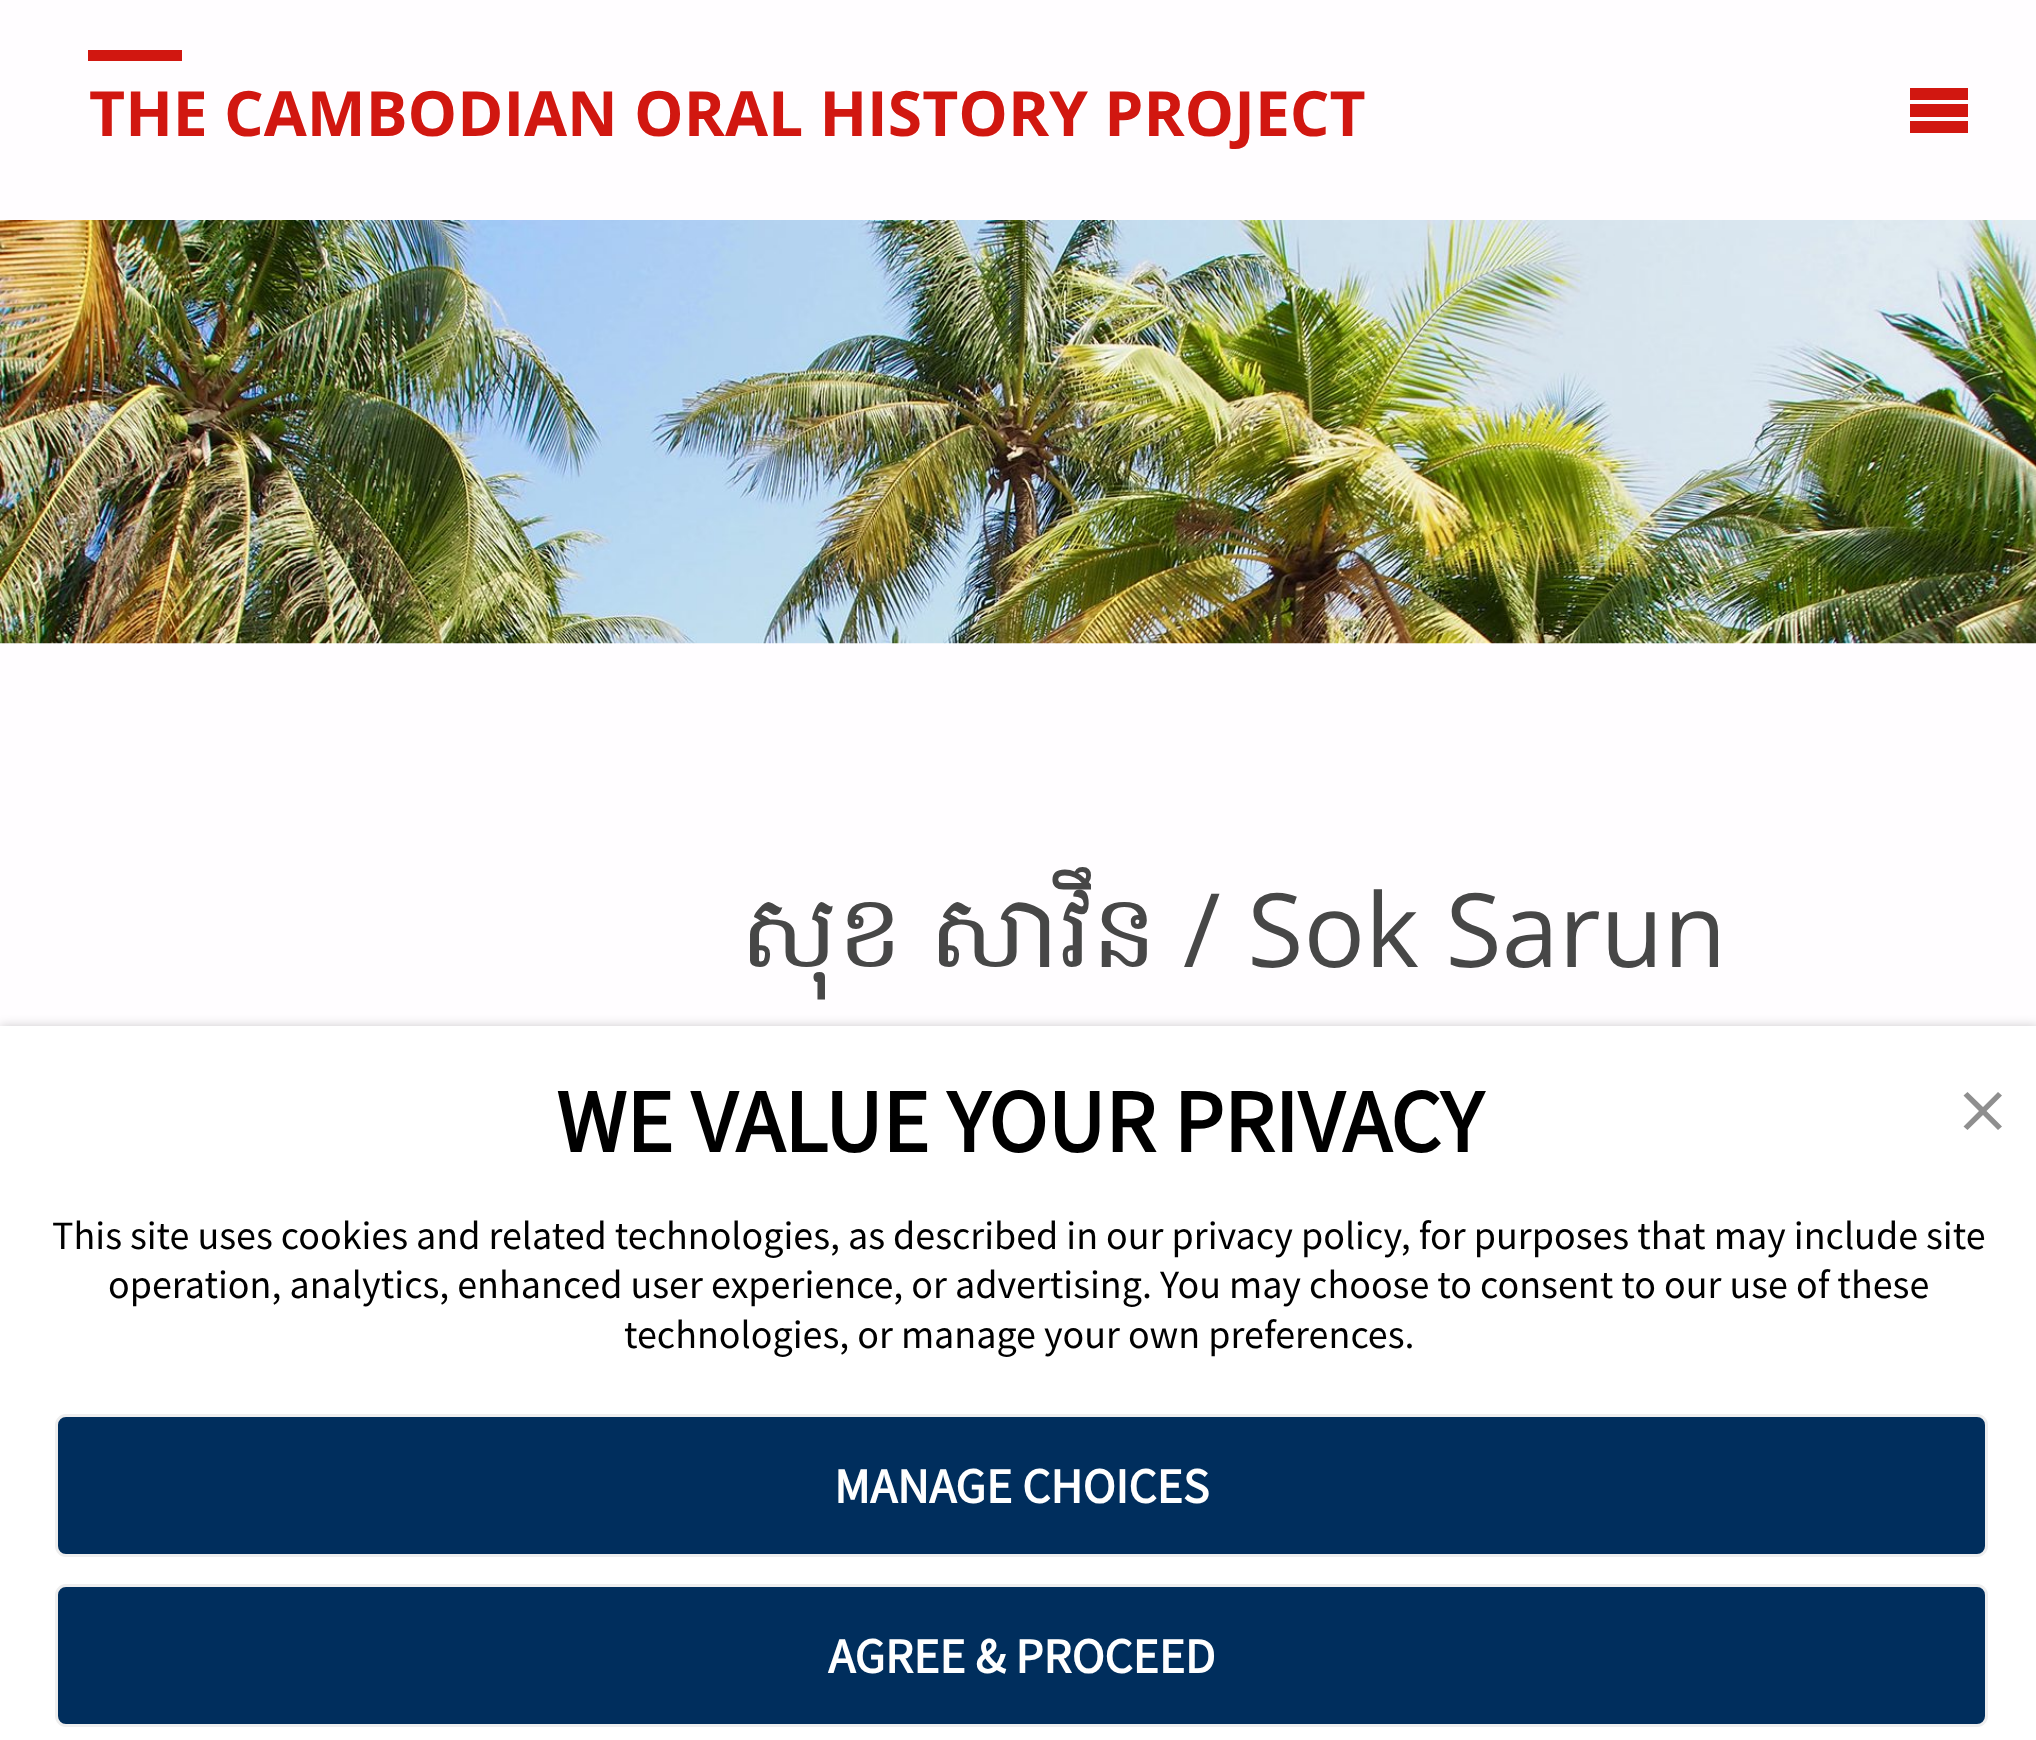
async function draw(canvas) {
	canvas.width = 2036;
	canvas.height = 1740;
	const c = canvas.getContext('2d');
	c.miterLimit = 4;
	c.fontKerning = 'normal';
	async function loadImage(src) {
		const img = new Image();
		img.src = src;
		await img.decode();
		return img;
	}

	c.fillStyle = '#fffdff';
	c.fillRect(0, 0, 2036, 1740);
	c.fillStyle = '#d11710';
	c.fillRect(88, 50, 94, 11);
	c.font = 'bold 62.4px Open Sans';
	c.fillText('THE CAMBODIAN ORAL HISTORY PROJECT', 89, 136);
	c.beginPath();
	c.moveTo(1910, 88);
	c.lineTo(1968, 88);
	c.lineTo(1968, 100);
	c.lineTo(1910, 100);
	c.closePath();
	c.moveTo(1910, 104);
	c.lineTo(1968, 104);
	c.lineTo(1968, 117);
	c.lineTo(1910, 117);
	c.closePath();
	c.moveTo(1910, 121);
	c.lineTo(1968, 121);
	c.lineTo(1968, 133);
	c.lineTo(1910, 133);
	c.closePath();
	c.fill();
	c.drawImage(await loadImage('img1.png'), 0, 220, 2036, 424);
	c.font = '102.5px Hanuman';
	c.fillStyle = '#474747';
	c.fillText('សុខ', 740, 967);
	c.fillText('សាវឹន', 929, 967);
	c.font = '102.5px Open Sans';
	c.fillText('/ Sok Sarun', 1183, 967);
	c.fillStyle = '#00000033';
	c.filter = 'blur(5.5px)';
	c.beginPath();
	c.rect(0, 1026, 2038, 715);
	c.fill();
	c.filter = 'none';
	c.fillStyle = '#fff';
	c.fillRect(0, 1026, 2036, 714);
	c.font = 'bold 89.1px Source Sans Pro';
	c.fillStyle = '#000';
	c.fillText('WE VALUE YOUR PRIVACY', 556, 1152);
	c.font = '40.1px Source Sans Pro';
	for (const [text, x, y] of [
		['This site uses cookies and related technologies, as described in our privacy policy, for purposes that may include site', 52, 1249],
		['operation, analytics, enhanced user experience, or advertising. You may choose to consent to our use of these', 108, 1298],
		['technologies, or manage your own preferences.', 624, 1348],
	]) {
		c.fillText(text, x, y);
	}
	c.fillStyle = '#8f8f8f';
	c.beginPath();
	c.moveTo(2002, 1095.5);
	c.lineTo(1986.5, 1111);
	c.lineTo(2002, 1126.5);
	c.lineTo(1998, 1130);
	c.lineTo(1983, 1115);
	c.lineTo(1967.5, 1130);
	c.lineTo(1963.5, 1126.5);
	c.lineTo(1979, 1111);
	c.lineTo(1963.5, 1095.5);
	c.lineTo(1967.5, 1092);
	c.lineTo(1983, 1107);
	c.lineTo(1998, 1092);
	c.closePath();
	c.fill('evenodd');
	c.fillStyle = '#002e5d';
	c.beginPath();
	c.roundRect(56.5, 1415.5, 1930, 140, 9.5);
	c.fill();
	c.strokeStyle = '#eee';
	c.lineWidth = 3;
	c.stroke();
	c.font = 'bold 49.5px Source Sans Pro';
	c.fillStyle = '#fff';
	c.fillText('MANAGE CHOICES', 834, 1503);
	c.fillStyle = '#002e5d';
	c.beginPath();
	c.roundRect(56.5, 1585.5, 1930, 140, 9.5);
	c.fill();
	c.stroke();
	c.fillStyle = '#fff';
	c.fillText('AGREE & PROCEED', 828, 1673);
}

draw(document.querySelector('canvas'));
